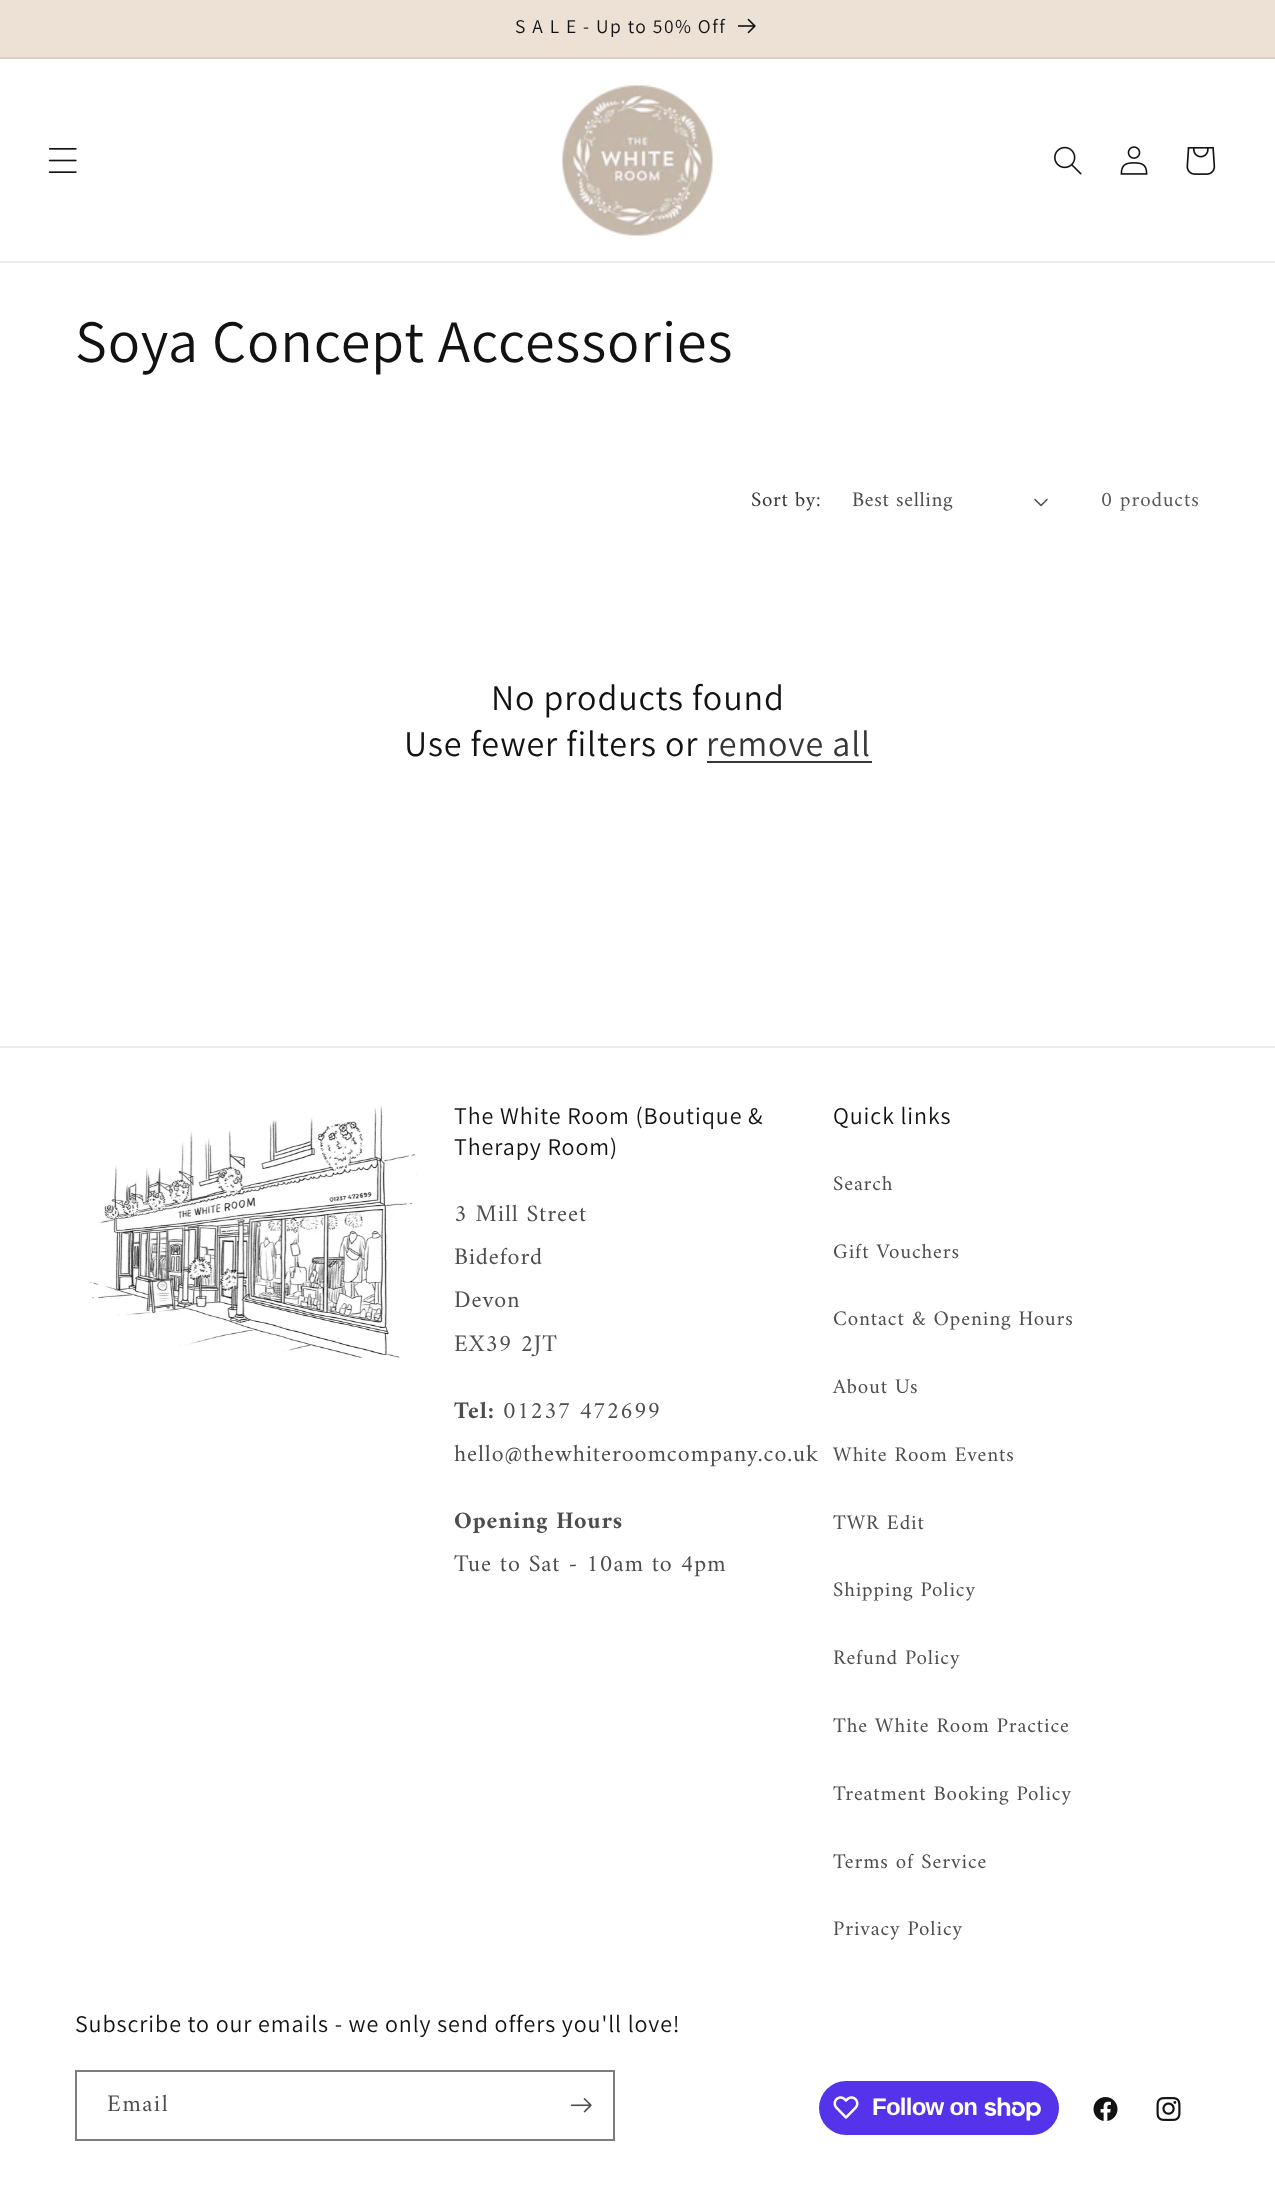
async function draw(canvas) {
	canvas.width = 1275;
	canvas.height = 2196;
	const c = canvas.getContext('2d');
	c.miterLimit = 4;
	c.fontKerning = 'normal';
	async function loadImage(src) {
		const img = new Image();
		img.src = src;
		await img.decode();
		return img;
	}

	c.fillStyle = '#fff';
	c.fillRect(0, 0, 1275, 2196);
	c.fillStyle = '#ede0d4';
	c.fillRect(0, 0, 1275, 57);
	c.fillStyle = '#dbd0c4';
	c.fillRect(0, 57, 1275, 2);
	c.letterSpacing = '1.5px';
	c.font = '19.5px Assistant';
	c.fillStyle = '#121212';
	c.fillText('S A L E - Up to 50% Off', 515, 33);
	c.drawImage(await loadImage('img1.png'), 738, 18, 18, 16);
	c.fillStyle = '#ececec';
	c.fillRect(0, 261, 1275, 2);
	c.drawImage(await loadImage('img2.png'), 48, 148, 29, 25);
	c.drawImage(await loadImage('img3.png'), 562, 85, 151, 151);
	c.drawImage(await loadImage('img4.png'), 1054, 146, 28, 29);
	c.drawImage(await loadImage('img5.png'), 1120, 146, 28, 29);
	c.drawImage(await loadImage('img6.png'), 1186, 147, 30, 28);
	c.letterSpacing = '0.9px';
	c.font = '60px Assistant';
	c.fillStyle = '#121212';
	c.fillText('Soya Concept Accessories', 75, 362);
	c.letterSpacing = '0.6px';
	c.font = '21px Amiri';
	c.fillStyle = '#363636';
	c.fillText('Sort by:', 751, 506);
	c.fillStyle = '#4d4d4d';
	c.fillText('Best selling', 852, 506);
	c.drawImage(await loadImage('img7.png'), 1034, 498, 14, 9);
	c.letterSpacing = '0.9px';
	c.fillStyle = '#595959';
	c.fillText('0 products', 1101, 506);
	c.font = '36px Assistant';
	c.fillStyle = '#121212';
	c.fillText('No products found', 491, 710);
	c.fillText('Use fewer filters or', 404, 756);
	c.fillStyle = '#363636';
	c.fillText('remove all', 706, 756);
	c.fillRect(707, 761, 165, 2);
	c.fillStyle = '#ececec';
	c.fillRect(0, 1046, 1275, 2);
	c.drawImage(await loadImage('img8.png'), 90, 1105, 327, 255);
	c.font = '24px Assistant';
	c.fillStyle = '#121212';
	c.fillText('The White Room (Boutique &', 454, 1124);
	c.fillText('Therapy Room)', 454, 1155);
	c.font = '24px Amiri';
	c.fillStyle = '#4d4d4d';
	for (const [text, x, y] of [
		['3 Mill Street', 454, 1221],
		['Bideford', 454, 1264],
		['Devon', 454, 1307],
		['EX39 2JT', 454, 1351],
	]) {
		c.fillText(text, x, y);
	}
	c.font = 'bold 24px Amiri';
	c.fillText('Tel:', 454, 1418);
	c.font = '24px Amiri';
	c.fillText('01237 472699', 503, 1418);
	c.fillText('hello@thewhiteroomcompany.co.uk', 454, 1461);
	c.font = 'bold 24px Amiri';
	c.fillText('Opening Hours', 454, 1528);
	c.font = '24px Amiri';
	c.fillText('Tue to Sat - 10am to 4pm', 454, 1571);
	c.font = '24px Assistant';
	c.fillStyle = '#121212';
	c.fillText('Quick links', 833, 1124);
	c.font = '21px Amiri';
	c.fillStyle = '#4d4d4d';
	for (const [text, x, y] of [
		['Search', 833, 1190],
		['Gift Vouchers', 833, 1258],
		['Contact & Opening Hours', 833, 1325],
		['About Us', 833, 1393],
		['White Room Events', 833, 1461],
		['TWR Edit', 833, 1529],
		['Shipping Policy', 833, 1596],
		['Refund Policy', 833, 1664],
		['The White Room Practice', 833, 1732],
		['Treatment Booking Policy', 833, 1800],
		['Terms of Service', 833, 1868],
		['Privacy Policy', 833, 1935],
	]) {
		c.fillText(text, x, y);
	}
	c.font = '24px Assistant';
	c.fillStyle = '#121212';
	c.fillText('Subscribe to our emails - we only send offers you\'ll love!', 75, 2032);
	c.strokeStyle = '#7d7d7d';
	c.lineWidth = 2;
	c.strokeRect(76, 2071, 538, 69);
	c.letterSpacing = '1.5px';
	c.font = '24px Amiri';
	c.fillStyle = '#4d4d4d';
	c.fillText('Email', 107, 2111);
	c.drawImage(await loadImage('img9.png'), 570, 2098, 22, 15);
	c.fillStyle = '#5433eb';
	c.beginPath();
	c.roundRect(819, 2081, 240, 54, 27);
	c.fill();
	c.drawImage(await loadImage('img10.png'), 833, 2096, 26, 23);
	c.letterSpacing = '-0.75px';
	c.font = 'bold 24px Liberation Sans';
	c.fillStyle = '#fff';
	c.fillText('Follow on', 872, 2115);
	c.drawImage(await loadImage('img11.png'), 984, 2097, 57, 24);
	c.drawImage(await loadImage('img12.png'), 1093, 2097, 25, 24);
	c.drawImage(await loadImage('img13.png'), 1156, 2097, 25, 24);
}

draw(document.querySelector('canvas'));
